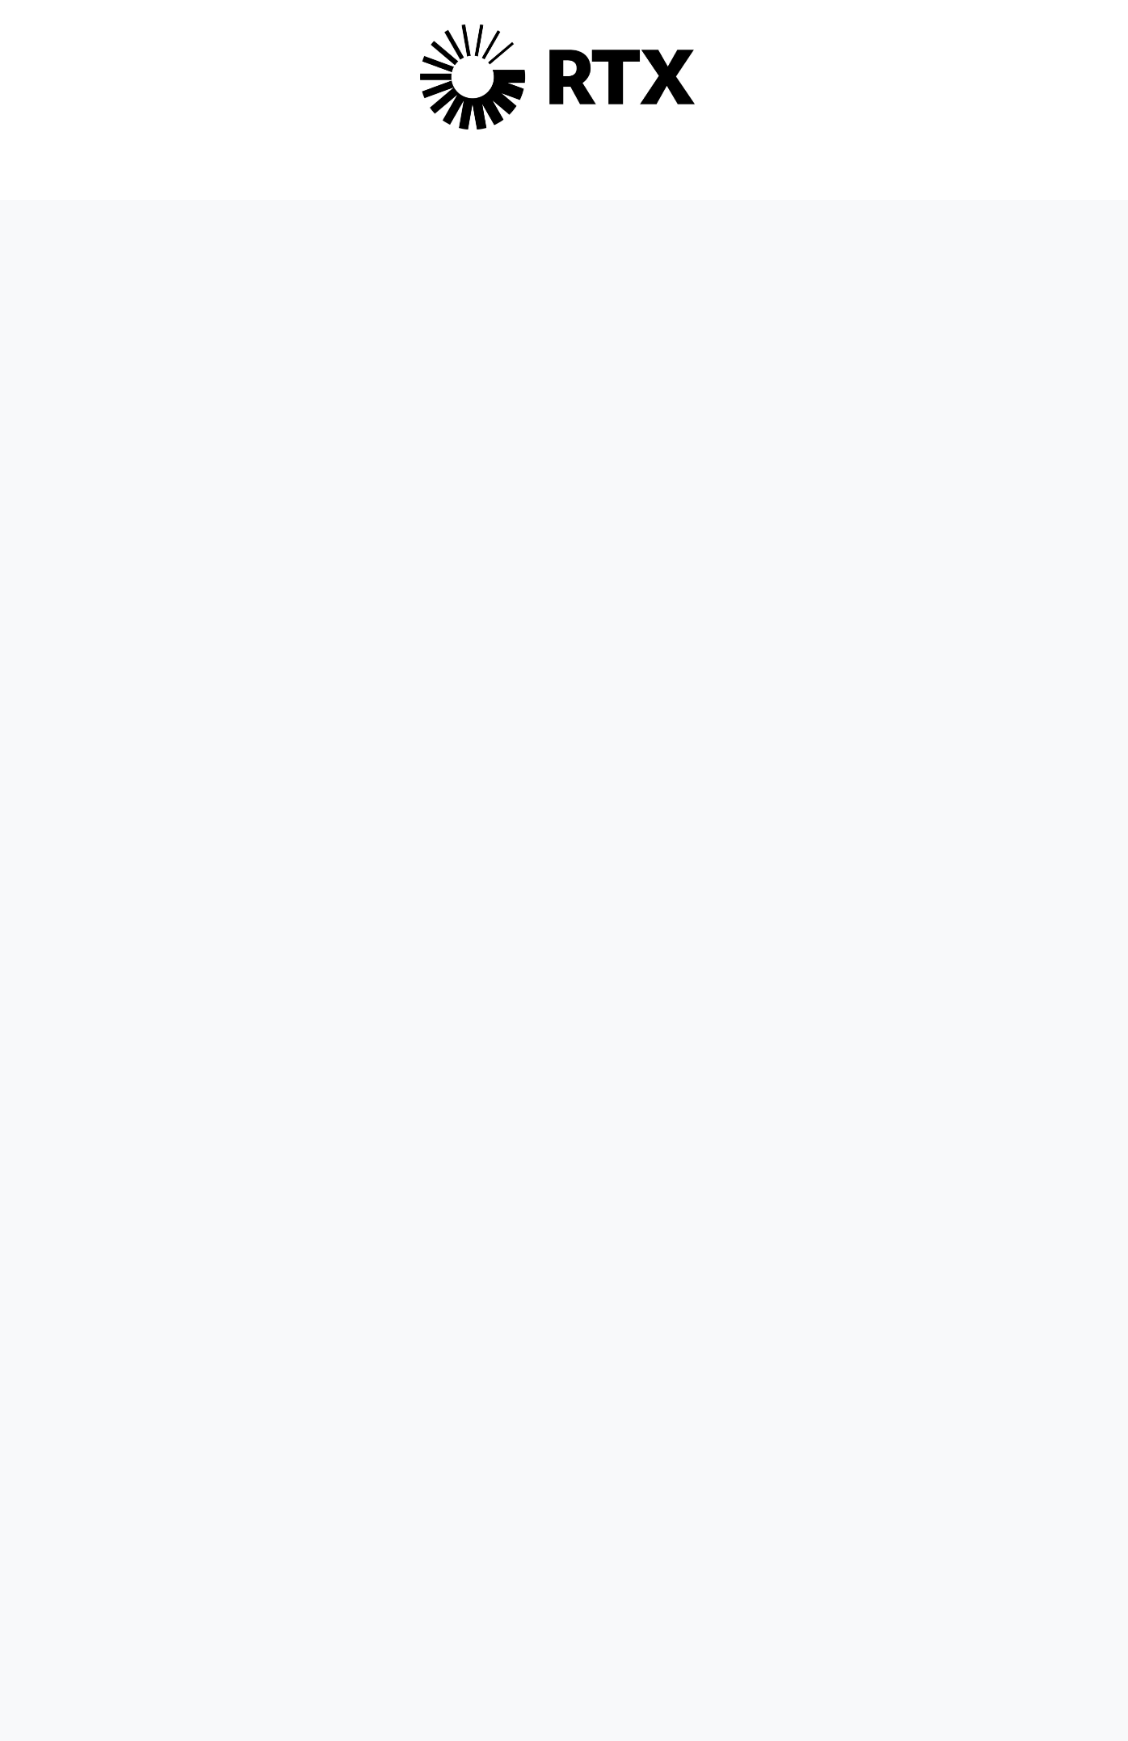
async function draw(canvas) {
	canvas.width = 1128;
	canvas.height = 1741;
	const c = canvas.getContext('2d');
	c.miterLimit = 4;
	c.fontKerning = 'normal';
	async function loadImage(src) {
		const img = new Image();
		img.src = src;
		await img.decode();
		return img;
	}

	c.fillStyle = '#fff';
	c.fillRect(0, 0, 1128, 1741);
	c.drawImage(await loadImage('img1.png'), 420, 24, 275, 106);
	c.fillStyle = '#f8f9fa';
	c.fillRect(0, 200, 1128, 1541);
}

draw(document.querySelector('canvas'));
